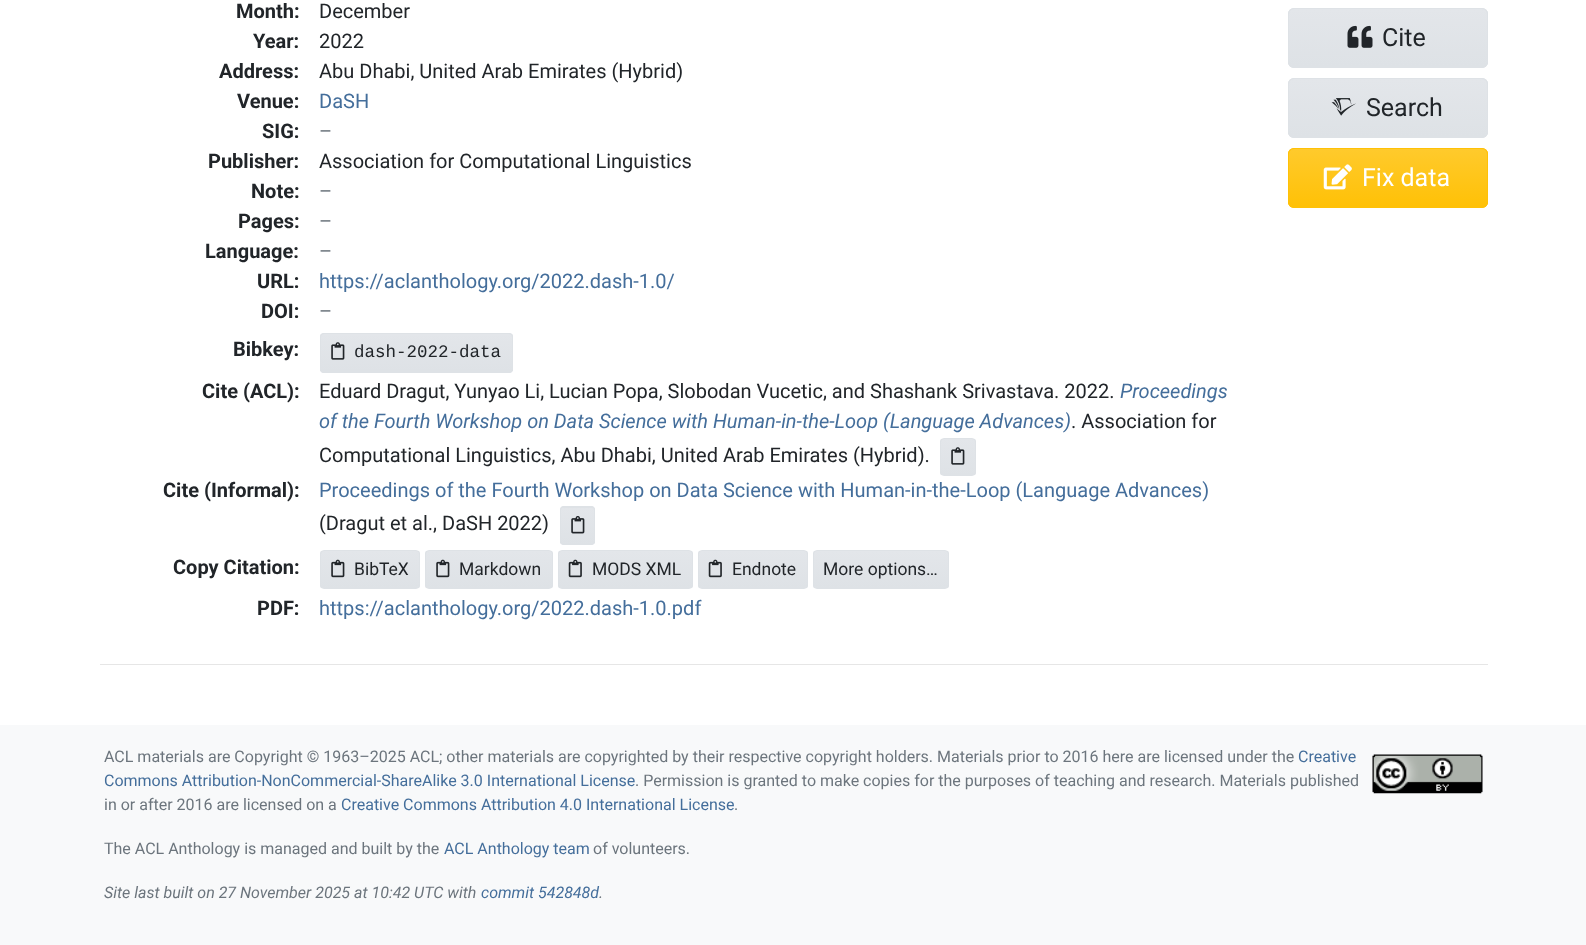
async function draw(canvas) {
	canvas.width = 1586;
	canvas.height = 945;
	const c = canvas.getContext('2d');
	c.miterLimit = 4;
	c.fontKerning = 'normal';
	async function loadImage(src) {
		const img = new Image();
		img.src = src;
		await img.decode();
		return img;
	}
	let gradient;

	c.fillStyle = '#fff';
	c.fillRect(0, 0, 1586, 945);
	c.font = 'bold 20px Roboto';
	c.fillStyle = '#212529';
	c.fillText('Month:', 236, 18);
	c.font = '20px Roboto';
	c.fillText('December', 319, 18);
	c.font = 'bold 20px Roboto';
	c.fillText('Year:', 253, 48);
	c.font = '20px Roboto';
	c.fillText('2022', 319, 48);
	c.font = 'bold 20px Roboto';
	c.fillText('Address:', 219, 78);
	c.font = '20px Roboto';
	c.fillText('Abu Dhabi, United Arab Emirates (Hybrid)', 319, 78);
	c.font = 'bold 20px Roboto';
	c.fillText('Venue:', 237, 108);
	c.font = '20px Roboto';
	c.fillStyle = '#446e9b';
	c.fillText('DaSH', 319, 108);
	c.font = 'bold 20px Roboto';
	c.fillStyle = '#212529';
	c.fillText('SIG:', 262, 138);
	c.font = '20px Roboto';
	c.fillStyle = '#6c757d';
	c.fillText('–', 319, 138);
	c.font = 'bold 20px Roboto';
	c.fillStyle = '#212529';
	c.fillText('Publisher:', 208, 168);
	c.font = '20px Roboto';
	c.fillText('Association for Computational Linguistics', 319, 168);
	c.font = 'bold 20px Roboto';
	c.fillText('Note:', 251, 198);
	c.font = '20px Roboto';
	c.fillStyle = '#6c757d';
	c.fillText('–', 319, 198);
	c.font = 'bold 20px Roboto';
	c.fillStyle = '#212529';
	c.fillText('Pages:', 238, 228);
	c.font = '20px Roboto';
	c.fillStyle = '#6c757d';
	c.fillText('–', 319, 228);
	c.font = 'bold 20px Roboto';
	c.fillStyle = '#212529';
	c.fillText('Language:', 205, 258);
	c.font = '20px Roboto';
	c.fillStyle = '#6c757d';
	c.fillText('–', 319, 258);
	c.font = 'bold 20px Roboto';
	c.fillStyle = '#212529';
	c.fillText('URL:', 257, 288);
	c.font = '20px Roboto';
	c.fillStyle = '#446e9b';
	c.fillText('https://aclanthology.org/2022.dash-1.0/', 319, 288);
	c.font = 'bold 20px Roboto';
	c.fillStyle = '#212529';
	c.fillText('DOI:', 261, 318);
	c.font = '20px Roboto';
	c.fillStyle = '#6c757d';
	c.fillText('–', 319, 318);
	c.font = 'bold 20px Roboto';
	c.fillStyle = '#212529';
	c.fillText('Bibkey:', 233, 356);
	c.fillStyle = '#dee2e6';
	c.beginPath();
	c.roundRect(320, 333, 193, 40, 4);
	c.fill();
	c.save();
	c.beginPath();
	c.roundRect(320, 333, 193, 40, 4);
	c.clip();
	gradient = c.createLinearGradient(416, 334, 416, 371);
	gradient.addColorStop(0, '#e3e6ea');
	gradient.addColorStop(1, '#dee2e6');
	c.fillStyle = gradient;
	c.fillRect(320, 334, 193, 37);
	c.restore();
	c.beginPath();
	c.roundRect(320.5, 333.5, 192, 39, 3.5);
	c.strokeStyle = '#dee2e6';
	c.stroke();
	c.drawImage(await loadImage('img1.png'), 331, 342, 14, 18);
	c.font = '17.5px Liberation Mono';
	c.fillStyle = '#212529';
	c.fillText('dash-2022-data', 354, 357);
	c.font = 'bold 20px Roboto';
	c.fillText('Cite (ACL):', 202, 398);
	c.font = '20px Roboto';
	c.fillText('Eduard Dragut, Yunyao Li, Lucian Popa, Slobodan Vucetic, and Shashank Srivastava. 2022.', 319, 398);
	c.font = 'italic 20px Roboto';
	c.fillStyle = '#446e9b';
	c.fillText('Proceedings', 1120, 398);
	c.fillText('of the Fourth Workshop on Data Science with Human-in-the-Loop (Language Advances)', 319, 428);
	c.font = '20px Roboto';
	c.fillStyle = '#212529';
	c.fillText('. Association for', 1071, 428);
	c.fillText('Computational Linguistics, Abu Dhabi, United Arab Emirates (Hybrid).', 319, 462);
	c.save();
	c.beginPath();
	c.roundRect(940, 438, 36, 38, 4);
	c.clip();
	gradient = c.createLinearGradient(958, 439, 958, 475);
	gradient.addColorStop(0, '#e3e6ea');
	gradient.addColorStop(1, '#dee2e6');
	c.fillStyle = gradient;
	c.fillRect(940, 439, 36, 36);
	c.restore();
	c.beginPath();
	c.roundRect(940.5, 438.5, 35, 37, 3.5);
	c.stroke();
	c.drawImage(await loadImage('img2.png'), 951, 447, 14, 18);
	c.font = 'bold 20px Roboto';
	c.fillText('Cite (Informal):', 163, 497);
	c.font = '20px Roboto';
	c.fillStyle = '#446e9b';
	c.fillText('Proceedings of the Fourth Workshop on Data Science with Human-in-the-Loop (Language Advances)', 319, 497);
	c.fillStyle = '#212529';
	c.fillText('(Dragut et al., DaSH 2022)', 319, 530);
	c.fillStyle = '#dee2e6';
	c.beginPath();
	c.roundRect(560, 506, 35, 39, 4);
	c.fill();
	c.save();
	c.beginPath();
	c.roundRect(560, 506, 35, 39, 4);
	c.clip();
	gradient = c.createLinearGradient(578, 508, 578, 544);
	gradient.addColorStop(0, '#e3e6ea');
	gradient.addColorStop(1, '#dee2e6');
	c.fillStyle = gradient;
	c.fillRect(560, 508, 35, 36);
	c.restore();
	c.beginPath();
	c.roundRect(560.5, 506.5, 34, 38, 3.5);
	c.stroke();
	c.drawImage(await loadImage('img3.png'), 571, 516, 14, 18);
	c.font = 'bold 20px Roboto';
	c.fillStyle = '#212529';
	c.fillText('Copy Citation:', 173, 574);
	c.save();
	c.beginPath();
	c.roundRect(320, 550, 100, 39, 4);
	c.clip();
	gradient = c.createLinearGradient(370, 551, 370, 588);
	gradient.addColorStop(0, '#e3e6ea');
	gradient.addColorStop(1, '#dee2e6');
	c.fillStyle = gradient;
	c.fillRect(320, 551, 100, 37);
	c.restore();
	c.beginPath();
	c.roundRect(320.5, 550.5, 99, 38, 3.5);
	c.stroke();
	c.drawImage(await loadImage('img4.png'), 331, 559, 14, 19);
	c.font = '17.5px Roboto';
	c.fillText('BibTeX', 354, 575);
	c.save();
	c.beginPath();
	c.roundRect(425, 550, 128, 39, 4);
	c.clip();
	gradient = c.createLinearGradient(489, 551, 489, 588);
	gradient.addColorStop(0, '#e3e6ea');
	gradient.addColorStop(1, '#dee2e6');
	c.fillStyle = gradient;
	c.fillRect(425, 551, 128, 37);
	c.restore();
	c.beginPath();
	c.roundRect(425.5, 550.5, 127, 38, 3.5);
	c.stroke();
	c.drawImage(await loadImage('img4.png'), 436, 559, 14, 19);
	c.fillText('Markdown', 459, 575);
	c.save();
	c.beginPath();
	c.roundRect(558, 550, 135, 39, 4);
	c.clip();
	gradient = c.createLinearGradient(625, 551, 625, 588);
	gradient.addColorStop(0, '#e3e6ea');
	gradient.addColorStop(1, '#dee2e6');
	c.fillStyle = gradient;
	c.fillRect(558, 551, 135, 37);
	c.restore();
	c.beginPath();
	c.roundRect(558.5, 550.5, 134, 38, 3.5);
	c.stroke();
	c.drawImage(await loadImage('img5.png'), 568, 559, 14, 19);
	c.fillText('MODS XML', 592, 575);
	c.save();
	c.beginPath();
	c.roundRect(698, 550, 110, 39, 4);
	c.clip();
	gradient = c.createLinearGradient(753, 551, 753, 588);
	gradient.addColorStop(0, '#e3e6ea');
	gradient.addColorStop(1, '#dee2e6');
	c.fillStyle = gradient;
	c.fillRect(698, 551, 110, 37);
	c.restore();
	c.beginPath();
	c.roundRect(698.5, 550.5, 109, 38, 3.5);
	c.stroke();
	c.drawImage(await loadImage('img5.png'), 708, 559, 14, 19);
	c.fillText('Endnote', 732, 575);
	c.save();
	c.beginPath();
	c.roundRect(813, 550, 136, 39, 4);
	c.clip();
	gradient = c.createLinearGradient(881, 551, 881, 588);
	gradient.addColorStop(0, '#e3e6ea');
	gradient.addColorStop(1, '#dee2e6');
	c.fillStyle = gradient;
	c.fillRect(813, 551, 136, 37);
	c.restore();
	c.beginPath();
	c.roundRect(813.5, 550.5, 135, 38, 3.5);
	c.stroke();
	c.fillText('More options…', 823, 575);
	c.font = 'bold 20px Roboto';
	c.fillText('PDF:', 257, 615);
	c.font = '20px Roboto';
	c.fillStyle = '#446e9b';
	c.fillText('https://aclanthology.org/2022.dash-1.0.pdf', 319, 615);
	c.fillStyle = '#dee2e6';
	c.beginPath();
	c.roundRect(1288, 8, 200, 60, 6);
	c.fill();
	c.save();
	c.beginPath();
	c.roundRect(1288, 8, 200, 60, 6);
	c.clip();
	gradient = c.createLinearGradient(1388, 9, 1388, 66);
	gradient.addColorStop(0, '#e3e6ea');
	gradient.addColorStop(1, '#dee2e6');
	c.fillStyle = gradient;
	c.fillRect(1288, 9, 200, 57);
	c.restore();
	c.beginPath();
	c.roundRect(1288.5, 8.5, 199, 59, 5.5);
	c.stroke();
	c.drawImage(await loadImage('img6.png'), 1347, 25, 26, 23);
	c.font = '25px Roboto';
	c.fillStyle = '#212529';
	c.fillText('Cite', 1382, 46);
	c.fillStyle = '#dee2e6';
	c.beginPath();
	c.roundRect(1288, 78, 200, 60, 6);
	c.fill();
	c.save();
	c.beginPath();
	c.roundRect(1288, 78, 200, 60, 6);
	c.clip();
	gradient = c.createLinearGradient(1388, 79, 1388, 136);
	gradient.addColorStop(0, '#e3e6ea');
	gradient.addColorStop(1, '#dee2e6');
	c.fillStyle = gradient;
	c.fillRect(1288, 79, 200, 57);
	c.restore();
	c.beginPath();
	c.roundRect(1288.5, 78.5, 199, 59, 5.5);
	c.stroke();
	c.drawImage(await loadImage('img7.png'), 1331, 98, 25, 18);
	c.fillStyle = '#212529';
	c.fillText('Search', 1366, 116);
	c.fillStyle = '#ffc107';
	c.beginPath();
	c.roundRect(1288, 148, 200, 60, 6);
	c.fill();
	c.save();
	c.beginPath();
	c.roundRect(1288, 148, 200, 60, 6);
	c.clip();
	gradient = c.createLinearGradient(1388, 149, 1388, 206);
	gradient.addColorStop(0, '#ffca2c');
	gradient.addColorStop(1, '#ffc107');
	c.fillStyle = gradient;
	c.fillRect(1288, 149, 200, 57);
	c.restore();
	c.beginPath();
	c.roundRect(1288.5, 148.5, 199, 59, 5.5);
	c.strokeStyle = '#ffc107';
	c.stroke();
	c.drawImage(await loadImage('img8.png'), 1323, 164, 29, 26);
	c.fillStyle = '#fff';
	c.fillText('Fix data', 1362, 186);
	c.fillStyle = '#e6e6e6';
	c.fillRect(100, 664, 1388, 1);
	c.fillStyle = '#f8f9fa';
	c.fillRect(0, 725, 1586, 220);
	c.font = '16px Roboto';
	c.fillStyle = '#6c757d';
	c.fillText('ACL materials are Copyright © 1963–2025 ACL; other materials are copyrighted by their respective copyright holders. Materials prior to 2016 here are licensed under the', 104, 762);
	c.fillStyle = '#446e9b';
	c.fillText('Creative', 1298, 762);
	c.drawImage(await loadImage('img9.png'), 1372, 754, 111, 40);
	c.fillText('Commons Attribution-NonCommercial-ShareAlike 3.0 International License', 104, 786);
	c.fillStyle = '#6c757d';
	c.fillText('. Permission is granted to make copies for the purposes of teaching and research. Materials published', 635, 786);
	c.fillText('in or after 2016 are licensed on a', 104, 810);
	c.fillStyle = '#446e9b';
	c.fillText('Creative Commons Attribution 4.0 International License', 341, 810);
	c.fillStyle = '#6c757d';
	c.fillText('.', 734, 810);
	c.fillText('The ACL Anthology is managed and built by the', 104, 854);
	c.fillStyle = '#446e9b';
	c.fillText('ACL Anthology team', 444, 854);
	c.fillStyle = '#6c757d';
	c.fillText('of volunteers.', 593, 854);
	c.font = 'italic 16px Roboto';
	c.fillText('Site last built on 27 November 2025 at 10:42 UTC with', 104, 898);
	c.fillStyle = '#446e9b';
	c.fillText('commit 542848d', 481, 898);
	c.fillStyle = '#6c757d';
	c.fillText('.', 599, 898);
}

draw(document.querySelector('canvas'));
